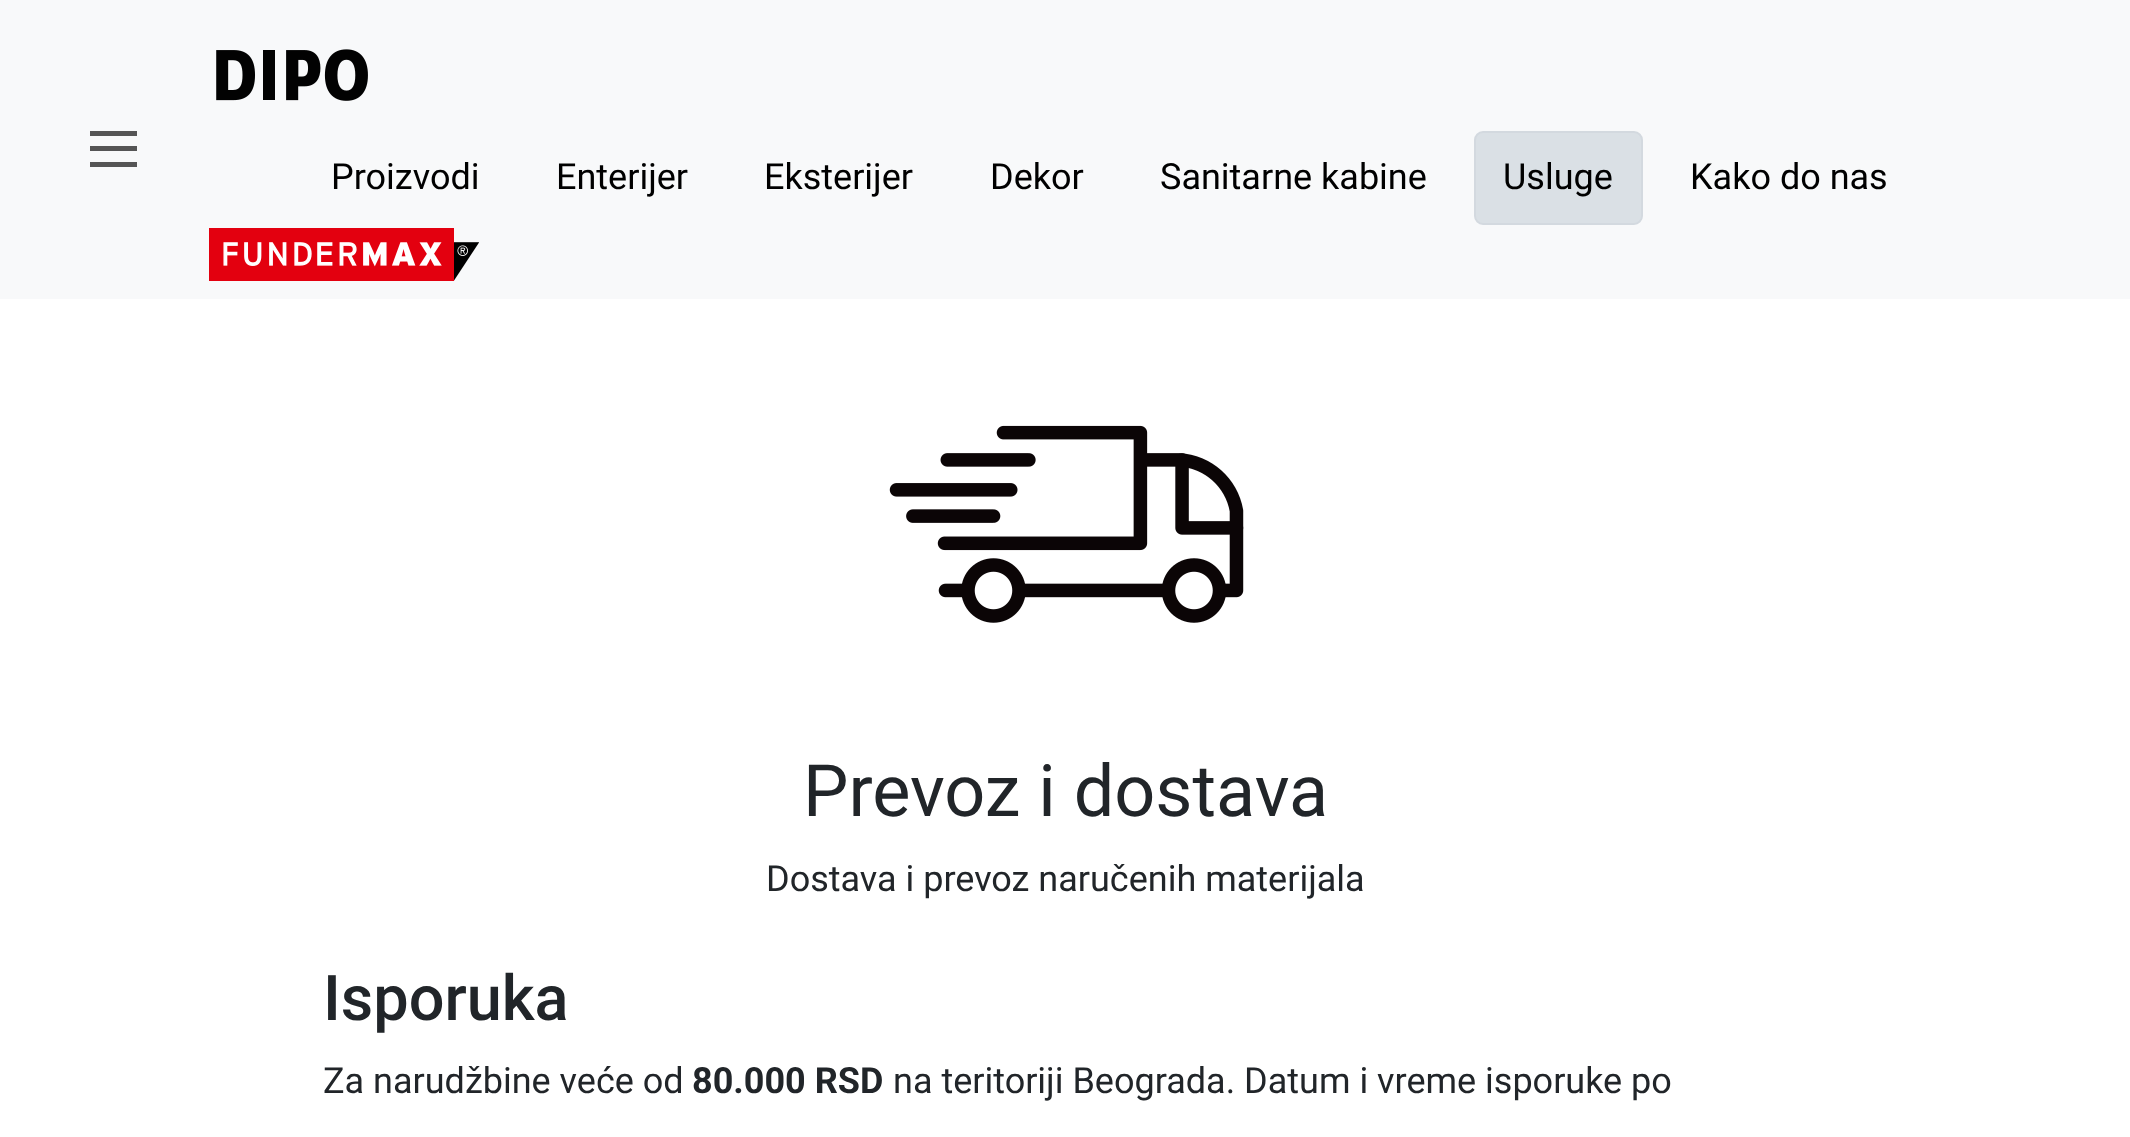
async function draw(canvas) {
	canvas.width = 2130;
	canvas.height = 1137;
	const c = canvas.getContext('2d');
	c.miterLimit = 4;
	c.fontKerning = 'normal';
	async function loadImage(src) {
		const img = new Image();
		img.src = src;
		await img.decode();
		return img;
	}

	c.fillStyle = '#fff';
	c.fillRect(0, 0, 2130, 1137);
	for (const [x, y, w, h, color] of [
		[0, 0, 2130, 299, '#f8f9fa'],
		[90, 131, 47, 5, '#555'],
		[90, 146, 47, 5, '#555'],
		[90, 162, 47, 5, '#555'],
	]) {
		c.fillStyle = color;
		c.fillRect(x, y, w, h);
	}
	c.drawImage(await loadImage('img1.png'), 216, 49, 152, 52);
	c.font = '36px Roboto';
	c.fillStyle = '#000';
	for (const [text, x, y] of [
		['Proizvodi', 331, 189],
		['Enterijer', 556, 189],
		['Eksterijer', 764, 189],
		['Dekor', 990, 189],
		['Sanitarne kabine', 1160, 189],
	]) {
		c.fillText(text, x, y);
	}
	c.fillStyle = '#dae0e5';
	c.beginPath();
	c.roundRect(1475, 132, 167, 92, 8);
	c.fill();
	c.strokeStyle = '#d3d9df';
	c.lineWidth = 2;
	c.stroke();
	c.fillStyle = '#000';
	c.fillText('Usluge', 1503, 189);
	c.fillText('Kako do nas', 1690, 189);
	c.drawImage(await loadImage('img2.png'), 209, 228, 270, 53);
	c.drawImage(await loadImage('img3.png'), 889, 425, 355, 198);
	c.font = '72px Roboto';
	c.fillStyle = '#212529';
	c.fillText('Prevoz i dostava', 803, 816);
	c.font = '36px Roboto';
	c.fillText('Dostava i prevoz naručenih materijala', 766, 891);
	c.font = '500 63px Roboto';
	c.fillText('Isporuka', 323, 1020);
	c.font = '36px Roboto';
	c.fillText('Za narudžbine veće od', 323, 1093);
	c.font = 'bold 36px Roboto';
	c.fillText('80.000 RSD', 692, 1093);
	c.font = '36px Roboto';
	c.fillText('na teritoriji Beograda. Datum i vreme isporuke po', 893, 1093);
}

draw(document.querySelector('canvas'));
